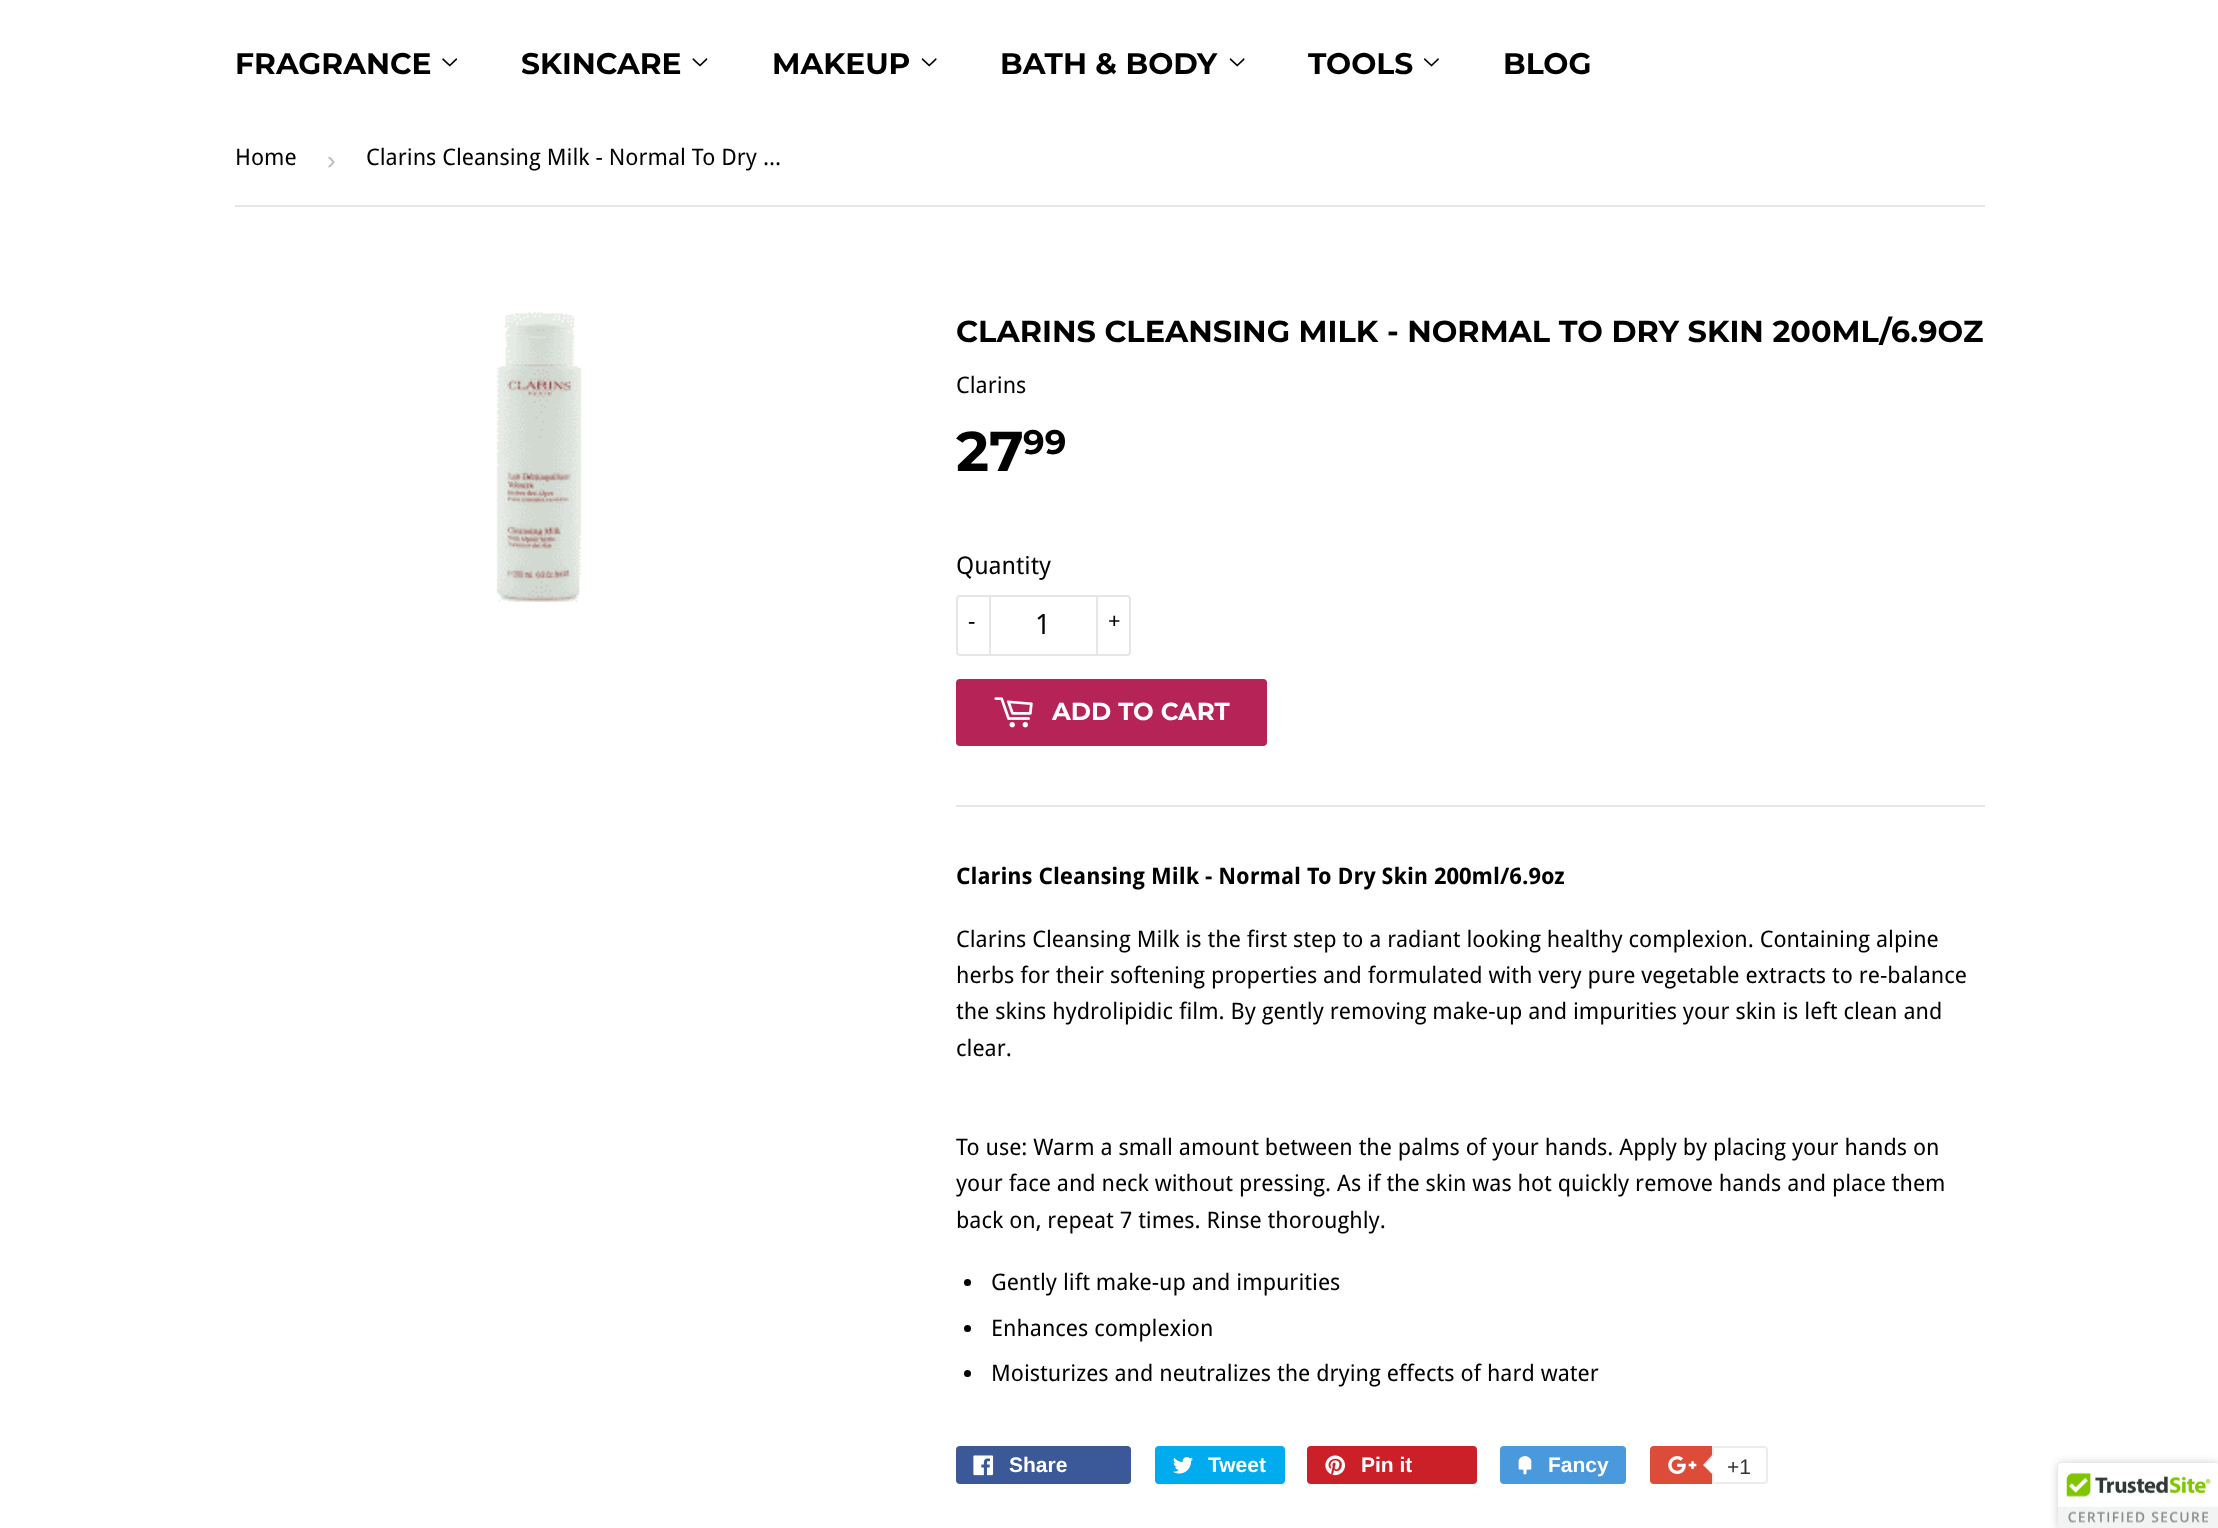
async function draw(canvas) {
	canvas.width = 2218;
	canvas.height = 1528;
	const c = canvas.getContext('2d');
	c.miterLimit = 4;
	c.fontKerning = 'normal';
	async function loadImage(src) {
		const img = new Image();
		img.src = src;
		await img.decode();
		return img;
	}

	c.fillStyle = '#fff';
	c.fillRect(0, 0, 2218, 1528);
	c.font = '100 29.75px Montserrat';
	c.fillStyle = '#000';
	c.fillText('FRAGRANCE', 235, 74);
	c.drawImage(await loadImage('img1.png'), 442, 58, 16, 9);
	c.fillText('SKINCARE', 521, 74);
	c.drawImage(await loadImage('img2.png'), 692, 58, 16, 9);
	c.fillText('MAKEUP', 772, 74);
	c.drawImage(await loadImage('img3.png'), 921, 58, 16, 9);
	c.fillText('BATH & BODY', 1000, 74);
	c.drawImage(await loadImage('img3.png'), 1229, 58, 16, 9);
	c.fillText('TOOLS', 1308, 74);
	c.drawImage(await loadImage('img4.png'), 1424, 58, 15, 9);
	c.fillText('BLOG', 1503, 74);
	c.fillStyle = '#e8e5e5';
	c.fillRect(235, 205, 1750, 2);
	c.font = '22.75px Droid Sans';
	c.fillStyle = '#000';
	c.fillText('Home', 235, 165);
	c.font = '26px Liberation Sans';
	c.fillStyle = '#bbb';
	c.fillText('›', 327, 169);
	c.font = '22.75px Droid Sans';
	c.fillStyle = '#000';
	c.fillText('Clarins Cleansing Milk - Normal To Dry ...', 366, 165);
	c.drawImage(await loadImage('img5.png'), 496, 312, 86, 290);
	c.font = '100 30.35px Montserrat';
	c.fillText('CLARINS CLEANSING MILK - NORMAL TO DRY SKIN 200ML/6.9OZ', 956, 342);
	c.font = '22.75px Droid Sans';
	c.fillText('Clarins', 956, 393);
	c.font = '100 56px Montserrat';
	c.fillText('27', 956, 471);
	c.font = '100 34px Montserrat';
	c.fillText('99', 1023, 454);
	c.font = '24.5px Droid Sans';
	c.fillText('Quantity', 956, 574);
	c.beginPath();
	c.roundRect(957, 596, 173, 59, 3);
	c.strokeStyle = '#e8e5e5';
	c.lineWidth = 2;
	c.stroke();
	c.fillStyle = '#e8e5e5';
	c.fillRect(989, 595, 2, 61);
	c.font = '22.75px Droid Sans';
	c.fillStyle = '#000';
	c.fillText('-', 968, 629);
	c.font = '28px Droid Sans';
	c.fillText('1', 1035, 634);
	c.fillStyle = '#e8e5e5';
	c.fillRect(1096, 595, 2, 61);
	c.font = '22.75px Droid Sans';
	c.fillStyle = '#000';
	c.fillText('+', 1108, 629);
	c.fillStyle = '#b62356';
	c.beginPath();
	c.roundRect(956, 679, 311, 67, 4);
	c.fill();
	c.drawImage(await loadImage('img6.png'), 994, 697, 39, 31);
	c.font = '100 24.5px Montserrat';
	c.fillStyle = '#fff';
	c.fillText('ADD TO CART', 1052, 720);
	c.fillStyle = '#e8e5e5';
	c.fillRect(956, 805, 1029, 2);
	c.font = 'bold 22.75px Droid Sans';
	c.fillStyle = '#000';
	c.fillText('Clarins Cleansing Milk - Normal To Dry Skin 200ml/6.9oz', 956, 884);
	c.font = '22.75px Droid Sans';
	for (const [text, x, y] of [
		['Clarins Cleansing Milk is the first step to a radiant looking healthy complexion. Containing alpine', 956, 947],
		['herbs for their softening properties and formulated with very pure vegetable extracts to re-balance', 956, 983],
		['the skins hydrolipidic film. By gently removing make-up and impurities your skin is left clean and', 956, 1019],
		['clear.', 956, 1056],
		['To use: Warm a small amount between the palms of your hands. Apply by placing your hands on', 956, 1155],
		['your face and neck without pressing. As if the skin was hot quickly remove hands and place them', 956, 1191],
		['back on, repeat 7 times. Rinse thoroughly.', 956, 1228],
	]) {
		c.fillText(text, x, y);
	}
	c.beginPath();
	c.arc(967.5, 1282.5, 3.5, 0, 2 * Math.PI);
	c.fill();
	c.fillText('Gently lift make-up and impurities', 991, 1290);
	c.beginPath();
	c.arc(967.5, 1328.5, 3.5, 0, 2 * Math.PI);
	c.fill();
	c.fillText('Enhances complexion', 991, 1336);
	c.beginPath();
	c.arc(967.5, 1373.5, 3.5, 0, 2 * Math.PI);
	c.fill();
	c.fillText('Moisturizes and neutralizes the drying effects of hard water', 991, 1381);
	c.fillStyle = '#3b5998';
	c.beginPath();
	c.roundRect(956, 1446, 175, 38, 4);
	c.fill();
	c.drawImage(await loadImage('img7.png'), 973, 1455, 21, 21);
	c.font = 'bold 21px Liberation Sans';
	c.fillStyle = '#fff';
	c.fillText('Share', 1009, 1472);
	c.fillStyle = '#00aced';
	c.beginPath();
	c.roundRect(1155, 1446, 130, 38, 4);
	c.fill();
	c.drawImage(await loadImage('img8.png'), 1173, 1457, 20, 17);
	c.fillStyle = '#fff';
	c.fillText('Tweet', 1208, 1472);
	c.fillStyle = '#cb2027';
	c.beginPath();
	c.roundRect(1307, 1446, 170, 38, 4);
	c.fill();
	c.drawImage(await loadImage('img9.png'), 1325, 1455, 20, 21);
	c.fillStyle = '#fff';
	c.fillText('Pin it', 1361, 1472);
	c.fillStyle = '#4999dc';
	c.beginPath();
	c.roundRect(1500, 1446, 126, 38, 4);
	c.fill();
	c.drawImage(await loadImage('img10.png'), 1518, 1456, 14, 19);
	c.fillStyle = '#fff';
	c.fillText('Fancy', 1548, 1472);
	c.fillStyle = '#dd4b39';
	c.beginPath();
	c.roundRect(1650, 1446, 114, 38, 4);
	c.fill();
	c.drawImage(await loadImage('img11.png'), 1668, 1456, 29, 18);
	c.fillStyle = '#fff';
	c.beginPath();
	c.roundRect(1713, 1447, 54, 36, [0, 3, 3, 0]);
	c.fill();
	c.strokeStyle = '#ececec';
	c.stroke();
	c.fillStyle = '#ececec';
	c.beginPath();
	c.moveTo(1713, 1454);
	c.lineTo(1713, 1475);
	c.lineTo(1703, 1465);
	c.closePath();
	c.fill();
	c.fillStyle = '#fff';
	c.beginPath();
	c.moveTo(1715, 1454);
	c.lineTo(1715, 1475);
	c.lineTo(1704.5, 1465);
	c.closePath();
	c.fill();
	c.font = '21px Liberation Sans';
	c.fillStyle = '#333';
	c.fillText('+1', 1727, 1474);
	c.fillStyle = '#00000033';
	c.filter = 'blur(4.5px)';
	c.beginPath();
	c.roundRect(2058, 1463, 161, 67, 4);
	c.fill();
	c.filter = 'none';
	c.fillStyle = '#fff';
	c.beginPath();
	c.moveTo(2062, 1463);
	c.lineTo(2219, 1463);
	c.lineTo(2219, 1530);
	c.lineTo(2058, 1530);
	c.lineTo(2058, 1467);
	c.bezierCurveTo(2058, 1465, 2060, 1463, 2062, 1463);
	c.closePath();
	c.fill();
	c.drawImage(await loadImage('img12.png'), 2058, 1463, 160, 65);
}

draw(document.querySelector('canvas'));
